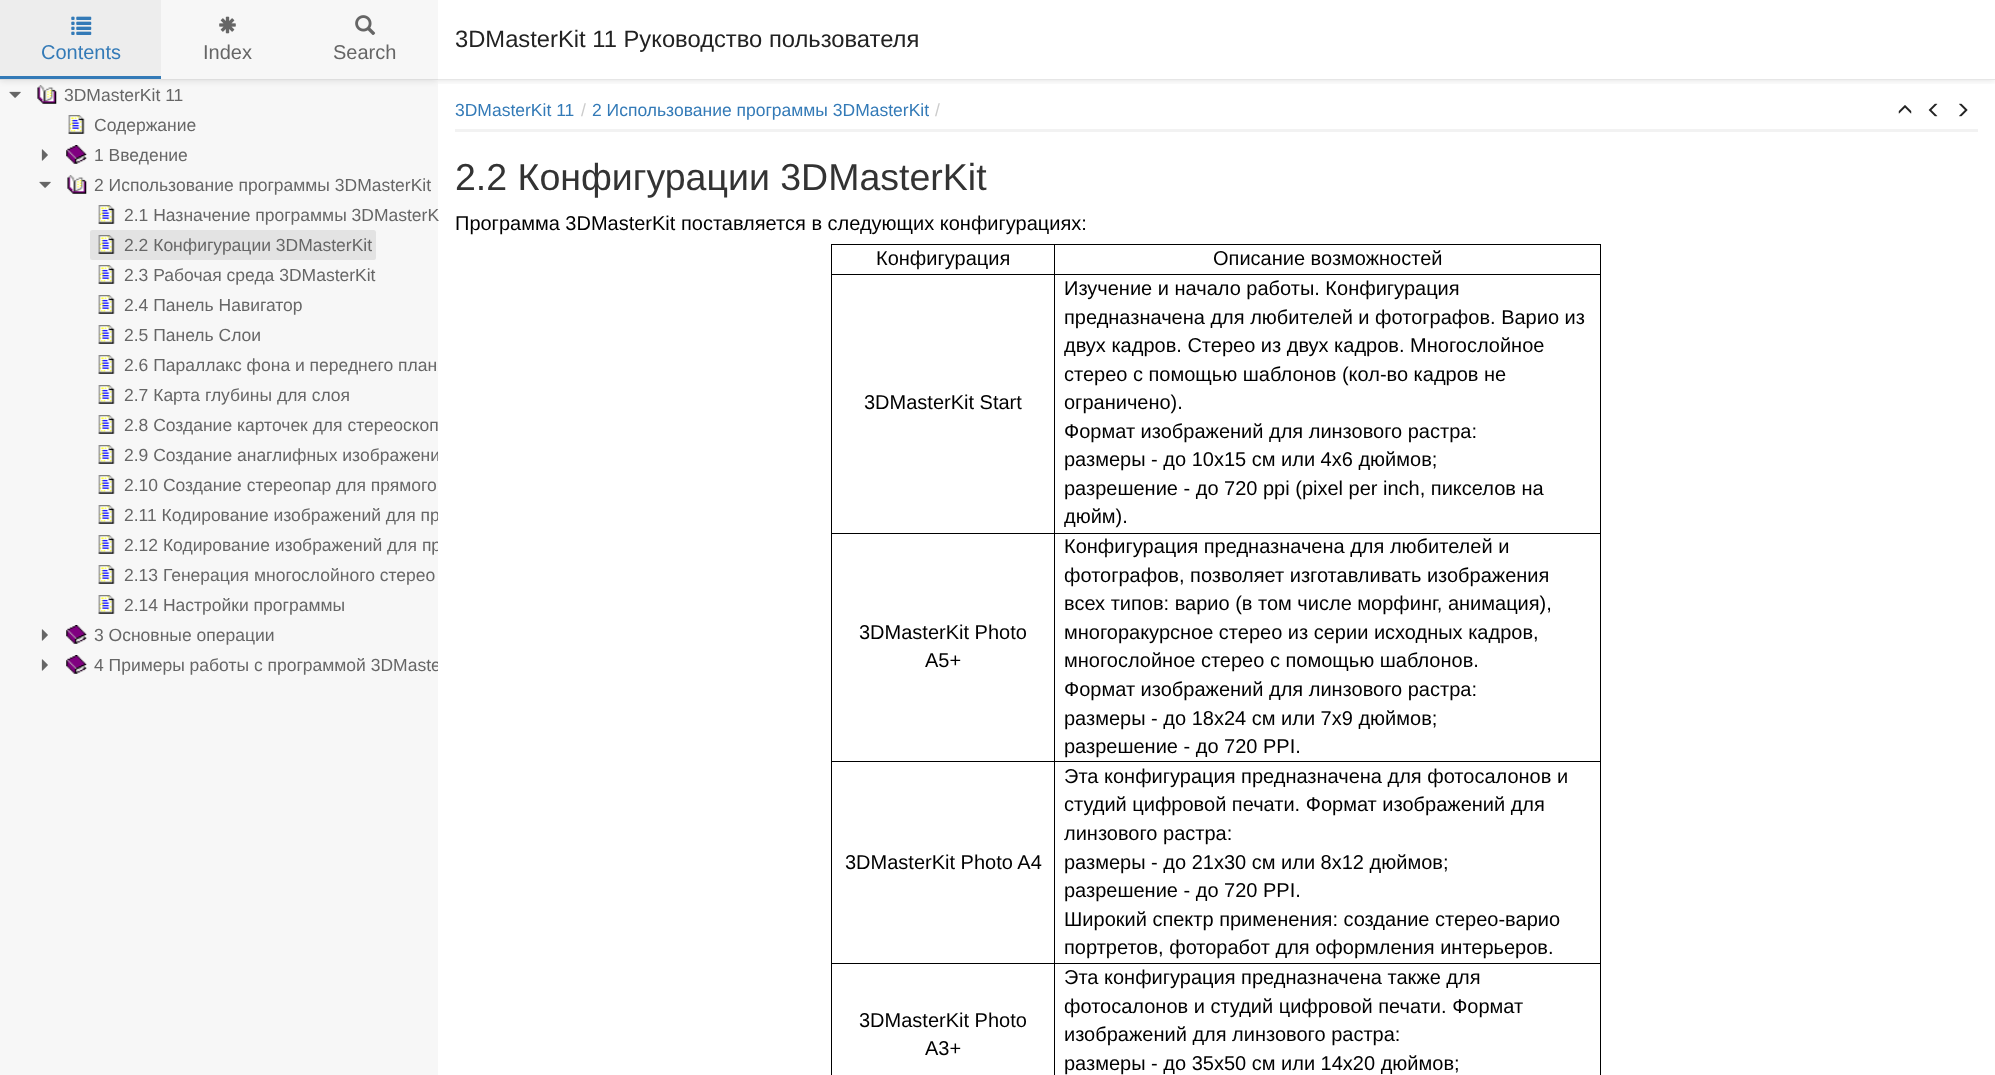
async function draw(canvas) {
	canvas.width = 1995;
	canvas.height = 1075;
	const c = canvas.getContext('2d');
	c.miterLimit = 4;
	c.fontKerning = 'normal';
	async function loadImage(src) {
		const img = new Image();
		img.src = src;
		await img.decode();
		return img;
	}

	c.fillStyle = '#fff';
	c.fillRect(0, 0, 1995, 1075);
	c.save();
	c.beginPath();
	c.rect(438, 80, 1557, 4);
	c.clip();
	c.fillStyle = '#0000001a';
	c.filter = 'blur(3px)';
	c.beginPath();
	c.rect(0, 1, 1995, 80);
	c.fill();
	c.filter = 'none';
	c.restore();
	c.fillStyle = '#e6e6e6';
	c.fillRect(438, 79, 1557, 1);
	c.font = '23.75px Liberation Sans';
	c.fillStyle = '#222';
	c.fillText('3DMasterKit 11 Руководство пользователя', 455, 47);
	c.fillStyle = '#f7f7f7';
	c.fillRect(0, 0, 438, 1075);
	c.save();
	c.beginPath();
	c.rect(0, 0, 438, 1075);
	c.clip();
	c.beginPath();
	c.moveTo(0, 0);
	c.lineTo(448, 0);
	c.lineTo(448, 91);
	c.lineTo(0, 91);
	c.closePath();
	c.moveTo(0, 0);
	c.lineTo(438, 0);
	c.lineTo(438, 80);
	c.lineTo(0, 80);
	c.closePath();
	c.clip('evenodd');
	c.fillStyle = '#0000001a';
	c.filter = 'blur(3px)';
	c.beginPath();
	c.rect(0, 1, 438, 80);
	c.fill();
	c.filter = 'none';
	c.restore();
	c.fillStyle = '#dedede';
	c.fillRect(0, 79, 438, 1);
	c.fillStyle = '#ededed';
	c.fillRect(0, 0, 161, 76);
	c.drawImage(await loadImage('img1.png'), 71, 16, 21, 19);
	c.font = '20px Liberation Sans';
	c.fillStyle = '#337ab7';
	c.fillText('Contents', 41, 59);
	c.fillRect(0, 76, 161, 3);
	c.drawImage(await loadImage('img2.png'), 219, 16, 17, 18);
	c.fillStyle = '#666';
	c.fillText('Index', 203, 59);
	c.drawImage(await loadImage('img3.png'), 355, 15, 21, 20);
	c.fillText('Search', 333, 59);
	c.drawImage(await loadImage('img4.png'), 9, 91, 12, 7);
	c.drawImage(await loadImage('img5.png'), 37, 85, 20, 19);
	c.font = '17.5px Liberation Sans';
	c.fillText('3DMasterKit 11', 64, 101);
	c.drawImage(await loadImage('img6.png'), 68, 115, 17, 19);
	c.fillText('Содержание', 94, 131);
	c.drawImage(await loadImage('img7.png'), 41, 149, 7, 12);
	c.drawImage(await loadImage('img8.png'), 66, 145, 21, 19);
	c.fillText('1 Введение', 94, 161);
	c.drawImage(await loadImage('img4.png'), 39, 181, 12, 7);
	c.drawImage(await loadImage('img9.png'), 67, 175, 20, 19);
	c.fillText('2 Использование программы 3DMasterKit', 94, 191);
	c.drawImage(await loadImage('img10.png'), 98, 205, 17, 19);
	c.fillText('2.1 Назначение программы 3DMasterK', 124, 221);
	c.fillStyle = '#e3e3e3';
	c.beginPath();
	c.roundRect(90, 230, 286, 30, 2.5);
	c.fill();
	c.drawImage(await loadImage('img11.png'), 98, 235, 17, 19);
	c.fillStyle = '#666';
	c.fillText('2.2 Конфигурации 3DMasterKit', 124, 251);
	c.drawImage(await loadImage('img10.png'), 98, 265, 17, 19);
	c.fillText('2.3 Рабочая среда 3DMasterKit', 124, 281);
	c.drawImage(await loadImage('img6.png'), 98, 295, 17, 19);
	c.fillText('2.4 Панель Навигатор', 124, 311);
	c.drawImage(await loadImage('img10.png'), 98, 325, 17, 19);
	c.fillText('2.5 Панель Слои', 124, 341);
	c.drawImage(await loadImage('img6.png'), 98, 355, 17, 19);
	c.fillText('2.6 Параллакс фона и переднего план', 124, 371);
	c.drawImage(await loadImage('img10.png'), 98, 385, 17, 19);
	c.fillText('2.7 Карта глубины для слоя', 124, 401);
	c.drawImage(await loadImage('img10.png'), 98, 415, 17, 19);
	c.fillText('2.8 Создание карточек для стереоскоп', 124, 431);
	c.drawImage(await loadImage('img6.png'), 98, 445, 17, 19);
	c.save();
	c.beginPath();
	c.rect(0, 80, 438, 995);
	c.clip();
	c.fillText('2.9 Создание анаглифных изображени', 124, 461);
	c.restore();
	c.drawImage(await loadImage('img10.png'), 98, 475, 17, 19);
	c.fillText('2.10 Создание стереопар для прямого', 124, 491);
	c.drawImage(await loadImage('img10.png'), 98, 505, 17, 19);
	c.save();
	c.beginPath();
	c.rect(0, 80, 438, 995);
	c.clip();
	c.fillText('2.11 Кодирование изображений для пр', 124, 521);
	c.restore();
	c.drawImage(await loadImage('img6.png'), 98, 535, 17, 19);
	c.save();
	c.beginPath();
	c.rect(0, 80, 438, 995);
	c.clip();
	c.fillText('2.12 Кодирование изображений для пр', 124, 551);
	c.restore();
	c.drawImage(await loadImage('img10.png'), 98, 565, 17, 19);
	c.fillText('2.13 Генерация многослойного стерео', 124, 581);
	c.drawImage(await loadImage('img6.png'), 98, 595, 17, 19);
	c.fillText('2.14 Настройки программы', 124, 611);
	c.drawImage(await loadImage('img7.png'), 41, 629, 7, 12);
	c.drawImage(await loadImage('img8.png'), 66, 625, 21, 19);
	c.fillText('3 Основные операции', 94, 641);
	c.drawImage(await loadImage('img7.png'), 41, 659, 7, 12);
	c.drawImage(await loadImage('img12.png'), 66, 655, 21, 19);
	c.save();
	c.beginPath();
	c.rect(0, 80, 438, 995);
	c.clip();
	c.fillText('4 Примеры работы с программой 3DMaste', 94, 671);
	c.restore();
	c.fillStyle = '#f2f2f2';
	c.fillRect(455, 129, 1523, 3);
	c.fillStyle = '#337ab7';
	c.fillText('3DMasterKit 11', 455, 116);
	c.fillStyle = '#ccc';
	c.fillText('/', 581, 116);
	c.fillStyle = '#337ab7';
	c.fillText('2 Использование программы 3DMasterKit', 592, 116);
	c.fillStyle = '#ccc';
	c.fillText('/', 935, 116);
	c.drawImage(await loadImage('img13.png'), 1898, 105, 14, 9);
	c.drawImage(await loadImage('img14.png'), 1928, 103, 10, 14);
	c.drawImage(await loadImage('img15.png'), 1959, 103, 9, 14);
	c.font = '37.5px Liberation Sans';
	c.fillStyle = '#333';
	c.fillText('2.2 Конфигурации 3DMasterKit', 455, 190);
	c.font = '20px Liberation Sans';
	c.fillStyle = '#000';
	c.fillText('Программа 3DMasterKit поставляется в следующих конфигурациях:', 455, 230);
	for (const [x, y, w, h, color] of [
		[1054, 244, 547, 1, '#000'],
		[1600, 274, 1, 801, '#000'],
		[1600, 244, 1, 31, '#000'],
		[1054, 963, 1, 112, '#000'],
		[1054, 963, 547, 1, '#000'],
		[1054, 761, 1, 203, '#000'],
		[1054, 761, 547, 1, '#000'],
		[1054, 533, 1, 230, '#000'],
		[1054, 533, 547, 1, '#000'],
		[1054, 274, 1, 260, '#000'],
		[1054, 274, 547, 1, '#000'],
		[1054, 244, 1, 31, '#000'],
		[831, 244, 224, 1, '#000'],
		[831, 963, 1, 112, '#000'],
		[831, 963, 224, 1, '#000'],
		[831, 761, 1, 203, '#000'],
		[831, 761, 224, 1, '#000'],
		[831, 533, 1, 230, '#000'],
		[831, 533, 224, 1, '#000'],
		[831, 274, 1, 260, '#000'],
		[831, 274, 224, 1, '#000'],
		[831, 244, 1, 31, '#000'],
	]) {
		c.fillStyle = color;
		c.fillRect(x, y, w, h);
	}
	for (const [text, x, y] of [
		['Конфигурация', 876, 265],
		['Описание возможностей', 1213, 265],
		['3DMasterKit Start', 864, 409],
		['Изучение и начало работы. Конфигурация', 1064, 295],
		['предназначена для любителей и фотографов. Варио из', 1064, 324],
		['двух кадров. Стерео из двух кадров. Многослойное', 1064, 352],
		['стерео с помощью шаблонов (кол-во кадров не', 1064, 381],
		['ограничено).', 1064, 409],
		['Формат изображений для линзового растра:', 1064, 438],
		['размеры - до 10х15 см или 4х6 дюймов;', 1064, 466],
		['разрешение - до 720 ppi (pixel per inch, пикселов на', 1064, 495],
		['дюйм).', 1064, 523],
		['3DMasterKit Photo', 859, 639],
		['A5+', 925, 667],
		['Конфигурация предназначена для любителей и', 1064, 553],
		['фотографов, позволяет изготавливать изображения', 1064, 582],
		['всех типов: варио (в том числе морфинг, анимация),', 1064, 610],
		['многоракурсное стерео из серии исходных кадров,', 1064, 639],
		['многослойное стерео с помощью шаблонов.', 1064, 667],
		['Формат изображений для линзового растра:', 1064, 696],
		['размеры - до 18х24 см или 7х9 дюймов;', 1064, 725],
		['разрешение - до 720 PPI.', 1064, 753],
		['3DMasterKit Photo A4', 845, 869],
		['Эта конфигурация предназначена для фотосалонов и', 1064, 783],
		['студий цифровой печати. Формат изображений для', 1064, 811],
		['линзового растра:', 1064, 840],
		['размеры - до 21х30 см или 8х12 дюймов;', 1064, 869],
		['разрешение - до 720 PPI.', 1064, 897],
		['Широкий спектр применения: создание стерео-варио', 1064, 926],
		['портретов, фоторабот для оформления интерьеров.', 1064, 954],
		['3DMasterKit Photo', 859, 1027],
		['A3+', 925, 1055],
		['Эта конфигурация предназначена также для', 1064, 984],
		['фотосалонов и студий цифровой печати. Формат', 1064, 1013],
		['изображений для линзового растра:', 1064, 1041],
		['размеры - до 35х50 см или 14х20 дюймов;', 1064, 1070],
	]) {
		c.fillText(text, x, y);
	}
}

draw(document.querySelector('canvas'));
